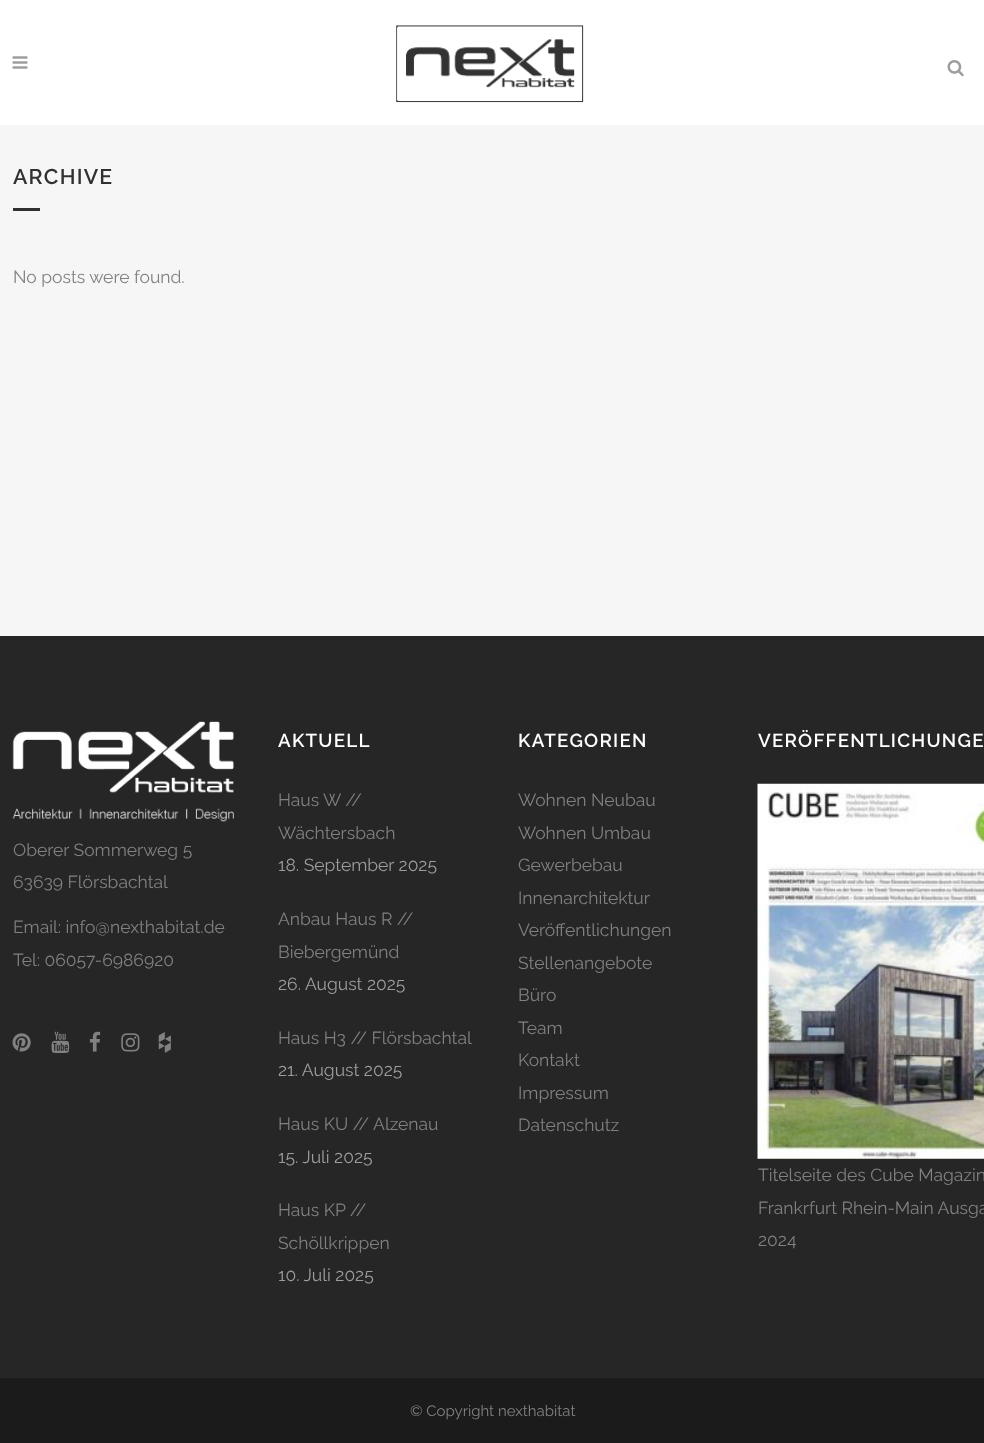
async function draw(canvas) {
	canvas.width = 984;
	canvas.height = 1443;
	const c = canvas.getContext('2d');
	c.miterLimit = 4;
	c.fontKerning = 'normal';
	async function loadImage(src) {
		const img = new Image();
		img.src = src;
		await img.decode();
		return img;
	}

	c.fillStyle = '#f6f6f6';
	c.fillRect(0, 0, 984, 1443);
	c.fillStyle = '#fff';
	c.fillRect(0, 0, 984, 125);
	c.drawImage(await loadImage('img1.png'), 12, 56, 16, 13);
	c.drawImage(await loadImage('img2.png'), 396, 25, 188, 78);
	c.drawImage(await loadImage('img3.png'), 947, 60, 17, 17);
	c.letterSpacing = '1.25px';
	c.font = '600 21.25px Raleway';
	c.fillStyle = '#303030';
	c.fillText('ARCHIVE', 13, 184);
	c.fillRect(13, 208, 27, 3);
	c.letterSpacing = '0px';
	c.font = '17.5px Raleway';
	c.fillStyle = '#818181';
	c.fillText('No posts were found.', 13, 283);
	c.fillStyle = '#262626';
	c.fillRect(0, 636, 984, 742);
	c.drawImage(await loadImage('img4.png'), 12, 721, 222, 101);
	c.fillStyle = '#818181';
	for (const [text, x, y] of [
		['Oberer Sommerweg 5', 13, 856],
		['63639 Flörsbachtal', 13, 888],
		['Email: info@nexthabitat.de', 13, 933],
		['Tel: 06057-6986920', 13, 966],
	]) {
		c.fillText(text, x, y);
	}
	c.drawImage(await loadImage('img5.png'), 12, 1033, 19, 19);
	c.drawImage(await loadImage('img6.png'), 51, 1031, 19, 22);
	c.drawImage(await loadImage('img7.png'), 89, 1031, 12, 21);
	c.drawImage(await loadImage('img8.png'), 121, 1033, 19, 19);
	c.drawImage(await loadImage('img9.png'), 158, 1032, 13, 21);
	c.letterSpacing = '1.25px';
	c.font = '600 18.75px Raleway';
	c.fillStyle = '#fff';
	c.fillText('AKTUELL', 278, 747);
	c.letterSpacing = '0px';
	c.font = '17.5px Raleway';
	c.fillStyle = '#818181';
	c.fillText('Haus W //', 278, 806);
	c.fillText('Wächtersbach', 278, 839);
	c.fillStyle = '#9d9d9d';
	c.fillText('18. September 2025', 278, 871);
	c.fillStyle = '#818181';
	c.fillText('Anbau Haus R //', 278, 925);
	c.fillText('Biebergemünd', 278, 958);
	c.fillStyle = '#9d9d9d';
	c.fillText('26. August 2025', 278, 990);
	c.fillStyle = '#818181';
	c.fillText('Haus H3 // Flörsbachtal', 278, 1044);
	c.fillStyle = '#9d9d9d';
	c.fillText('21. August 2025', 278, 1076);
	c.fillStyle = '#818181';
	c.fillText('Haus KU // Alzenau', 278, 1130);
	c.fillStyle = '#9d9d9d';
	c.fillText('15. Juli 2025', 278, 1163);
	c.fillStyle = '#818181';
	c.fillText('Haus KP //', 278, 1216);
	c.fillText('Schöllkrippen', 278, 1249);
	c.fillStyle = '#9d9d9d';
	c.fillText('10. Juli 2025', 278, 1281);
	c.letterSpacing = '1.25px';
	c.font = '600 18.75px Raleway';
	c.fillStyle = '#fff';
	c.fillText('KATEGORIEN', 518, 747);
	c.letterSpacing = '0px';
	c.font = '17.5px Raleway';
	c.fillStyle = '#818181';
	for (const [text, x, y] of [
		['Wohnen Neubau', 518, 806],
		['Wohnen Umbau', 518, 839],
		['Gewerbebau', 518, 871],
		['Innenarchitektur', 518, 904],
		['Veröffentlichungen', 518, 936],
		['Stellenangebote', 518, 969],
		['Büro', 518, 1001],
		['Team', 518, 1034],
		['Kontakt', 518, 1066],
		['Impressum', 518, 1099],
		['Datenschutz', 518, 1131],
	]) {
		c.fillText(text, x, y);
	}
	c.letterSpacing = '1.25px';
	c.font = '600 18.75px Raleway';
	c.fillStyle = '#fff';
	c.fillText('VERÖFFENTLICHUNGE', 758, 747);
	c.drawImage(await loadImage('img10.png'), 757, 783, 227, 376);
	c.letterSpacing = '0px';
	c.font = '17.5px Raleway';
	c.fillStyle = '#818181';
	for (const [text, x, y] of [
		['Titelseite des Cube Magazin', 758, 1181],
		['Frankrfurt Rhein-Main Ausga', 758, 1214],
		['2024', 758, 1246],
	]) {
		c.fillText(text, x, y);
	}
	c.fillStyle = '#1b1b1b';
	c.fillRect(0, 1378, 984, 65);
	c.font = '15px Raleway';
	c.fillStyle = '#818181';
	c.fillText('© Copyright nexthabitat', 410, 1416);
}

draw(document.querySelector('canvas'));
